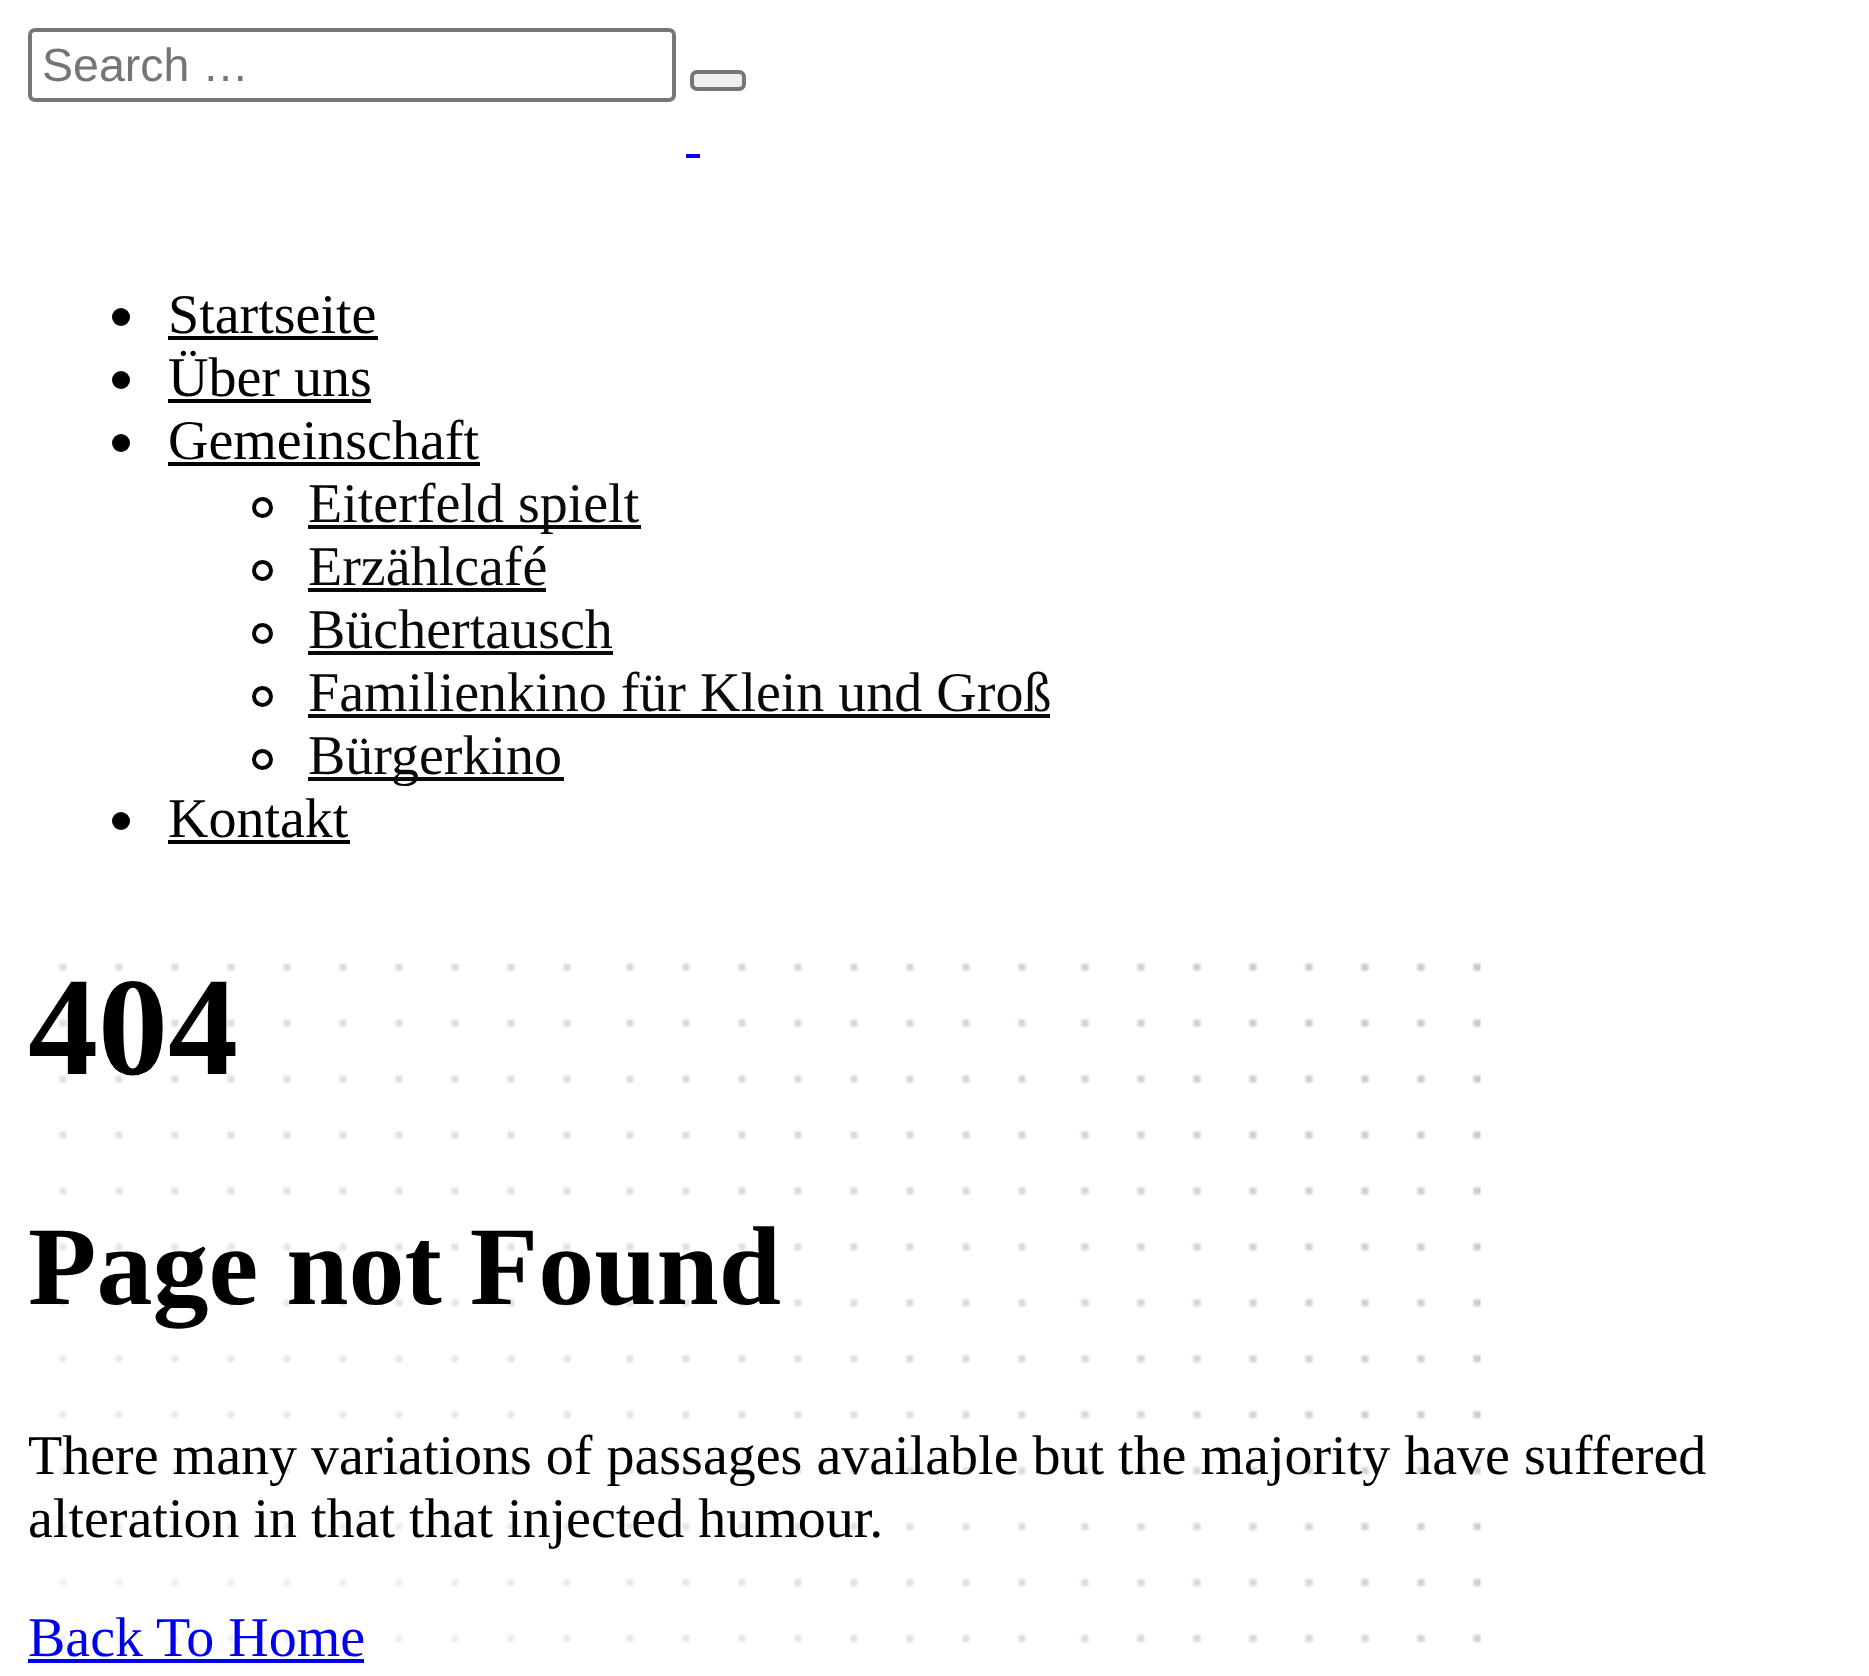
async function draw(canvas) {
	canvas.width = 1869;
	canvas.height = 1676;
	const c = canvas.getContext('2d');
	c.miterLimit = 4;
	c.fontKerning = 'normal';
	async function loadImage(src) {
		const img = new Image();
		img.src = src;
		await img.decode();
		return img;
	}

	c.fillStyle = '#fff';
	c.fillRect(0, 0, 1869, 1676);
	c.beginPath();
	c.roundRect(30, 30, 644, 70, 5);
	c.strokeStyle = '#767676';
	c.lineWidth = 4;
	c.stroke();
	c.font = '46.5px Liberation Sans';
	c.fillStyle = '#757575';
	c.fillText('Search …', 42, 81);
	c.fillStyle = '#efefef';
	c.beginPath();
	c.roundRect(692, 72, 52, 17, 5);
	c.fill();
	c.stroke();
	c.fillStyle = '#00e';
	c.fillRect(686, 154, 14, 4);
	c.fillStyle = '#000';
	c.beginPath();
	c.arc(121, 317, 9, 0, 2 * Math.PI);
	c.fill();
	c.font = '56px Liberation Serif';
	c.fillText('Startseite', 168, 333);
	c.fillRect(168, 336, 210, 4);
	c.beginPath();
	c.arc(121, 380, 9, 0, 2 * Math.PI);
	c.fill();
	c.fillText('Über uns', 168, 396);
	c.fillRect(168, 399, 203, 4);
	c.beginPath();
	c.arc(121, 443, 9, 0, 2 * Math.PI);
	c.fill();
	c.fillText('Gemeinschaft', 168, 459);
	c.fillRect(168, 462, 312, 4);
	c.beginPath();
	c.arc(262.5, 507.5, 8.5, 0, 2 * Math.PI);
	c.strokeStyle = '#000';
	c.stroke();
	c.fillStyle = '#0a0a0a';
	c.fillRect(308, 525, 333, 4);
	c.fillText('Eiterfeld spielt', 308, 522);
	c.beginPath();
	c.arc(262.5, 570.5, 8.5, 0, 2 * Math.PI);
	c.stroke();
	c.fillText('Erzählcafé', 308, 585);
	c.fillRect(308, 588, 238, 4);
	c.beginPath();
	c.arc(262.5, 633.5, 8.5, 0, 2 * Math.PI);
	c.stroke();
	c.fillText('Büchertausch', 308, 648);
	c.fillRect(308, 651, 305, 4);
	c.beginPath();
	c.arc(262.5, 696.5, 8.5, 0, 2 * Math.PI);
	c.stroke();
	c.fillText('Familienkino für Klein und Groß', 308, 711);
	c.fillRect(308, 714, 742, 4);
	c.beginPath();
	c.arc(262.5, 759.5, 8.5, 0, 2 * Math.PI);
	c.stroke();
	c.fillRect(308, 777, 256, 4);
	c.fillText('Bürgerkino', 308, 774);
	c.fillStyle = '#000';
	c.beginPath();
	c.arc(121, 821, 9, 0, 2 * Math.PI);
	c.fill();
	c.fillText('Kontakt', 168, 837);
	c.fillRect(168, 840, 182, 4);
	c.drawImage(await loadImage('img1.png'), 58, 962, 1423, 682);
	c.font = 'bold 140px Liberation Serif';
	c.fillText('404', 28, 1074);
	c.font = 'bold 112px Liberation Serif';
	c.fillText('Page not Found', 28, 1304);
	c.font = '56px Liberation Serif';
	c.fillText('There many variations of passages available but the majority have suffered', 28, 1474);
	c.fillText('alteration in that that injected humour.', 28, 1537);
	c.fillStyle = '#00e';
	c.fillText('Back To Home', 28, 1656);
	c.fillRect(28, 1659, 336, 4);
}

draw(document.querySelector('canvas'));
